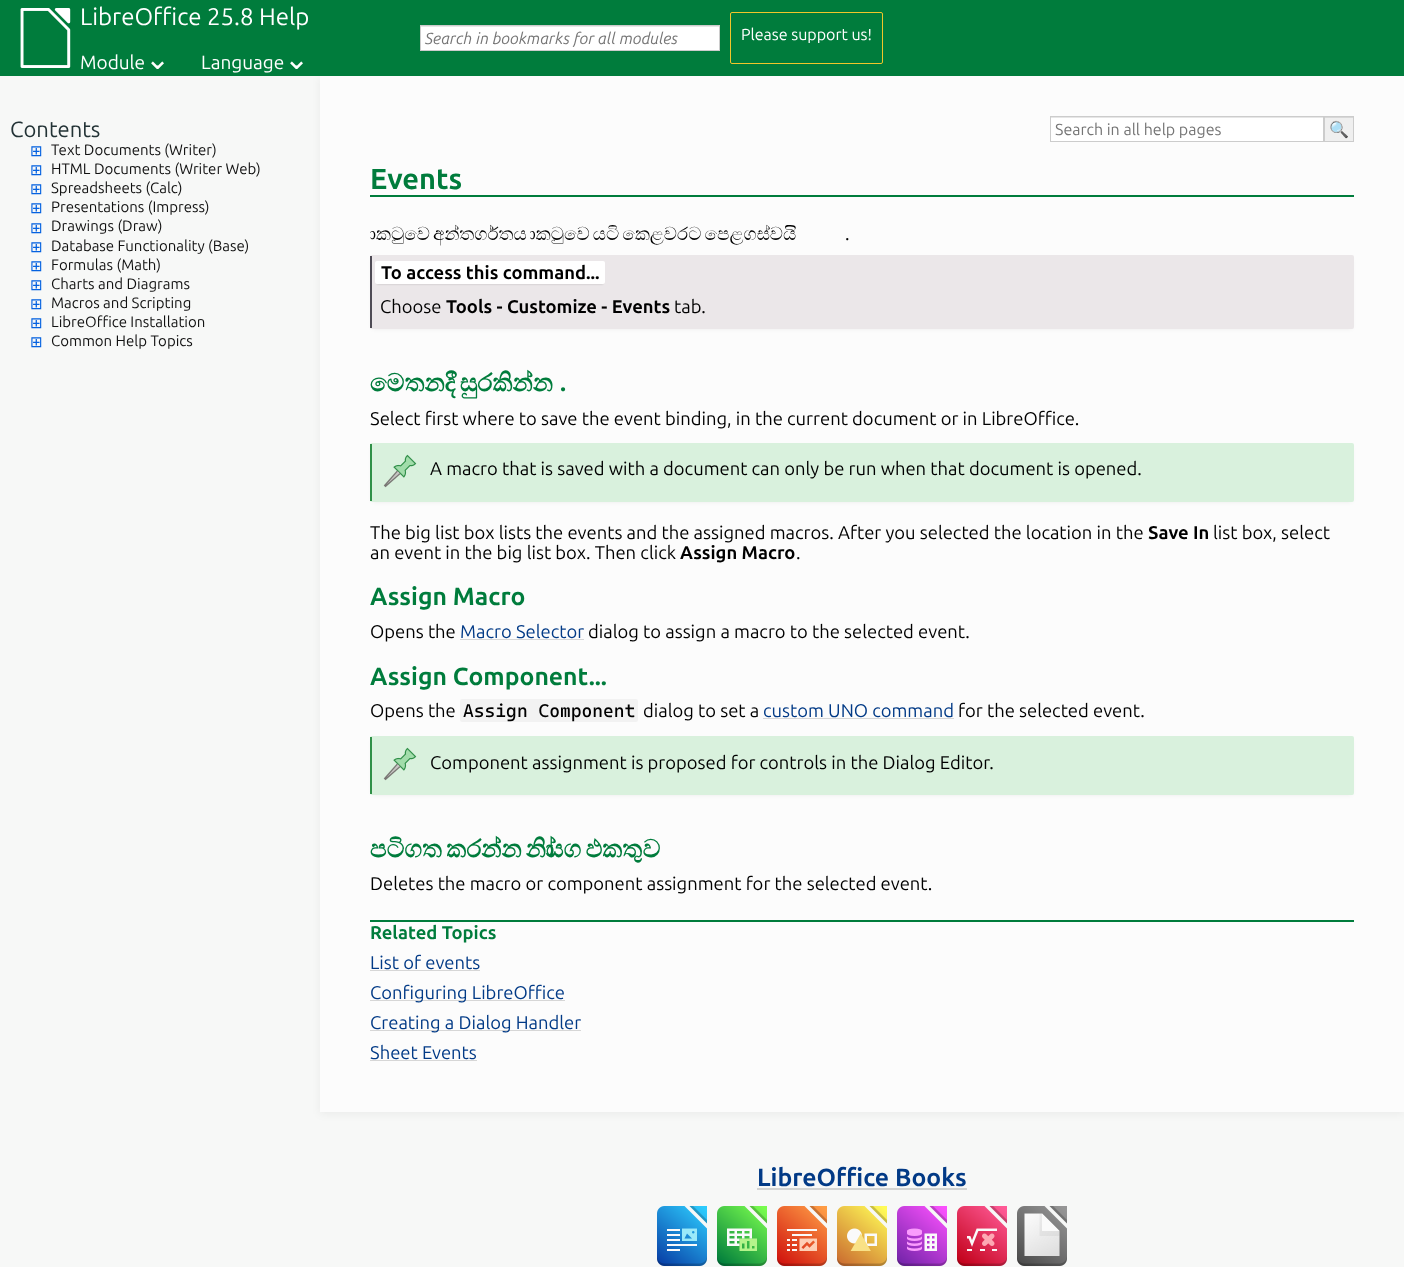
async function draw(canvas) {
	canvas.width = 1404;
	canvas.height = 1267;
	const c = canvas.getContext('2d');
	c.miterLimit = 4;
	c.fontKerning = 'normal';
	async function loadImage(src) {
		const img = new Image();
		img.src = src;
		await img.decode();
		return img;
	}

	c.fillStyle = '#f7f8f7';
	c.fillRect(0, 0, 1404, 1267);
	c.fillStyle = '#0000000d';
	c.filter = 'blur(4px)';
	c.beginPath();
	c.rect(320, 78, 1084, 1036);
	c.fill();
	c.filter = 'none';
	c.fillStyle = '#007c3c';
	c.fillRect(0, 0, 1404, 76);
	c.drawImage(await loadImage('img1.png'), 20, 8, 51, 60);
	c.font = '24px Ubuntu';
	c.fillStyle = '#fff';
	c.fillText('LibreOffice 25.8 Help', 80, 25);
	c.font = '19px Ubuntu';
	c.fillText('Module', 80, 69);
	c.font = '30px DejaVu Sans';
	c.fillText('⌄', 145, 69);
	c.font = '19px Ubuntu';
	c.fillText('Language', 201, 69);
	c.font = '30px DejaVu Sans';
	c.fillText('⌄', 284, 69);
	c.fillRect(421, 27, 298, 23);
	c.fillStyle = '#e6e6e6';
	c.fillRect(421, 26, 298, 1);
	c.strokeStyle = '#ccc';
	c.strokeRect(420.5, 25.5, 299, 25);
	c.font = 'italic 16px Ubuntu';
	c.fillStyle = '#757575';
	c.fillText('Search in bookmarks for all modules', 425, 44);
	c.beginPath();
	c.roundRect(730.5, 12.5, 152, 51, 1.5);
	c.strokeStyle = '#f1c62a';
	c.stroke();
	c.font = '16px Ubuntu';
	c.fillStyle = '#fff';
	c.fillText('Please support us!', 741, 40);
	c.font = '22px Ubuntu';
	c.fillStyle = '#233336';
	c.fillText('Contents', 10, 137);
	c.font = '15px DejaVu Sans';
	c.fillStyle = '#0461e0';
	c.fillText('⊞', 30, 156);
	c.font = '15px Ubuntu';
	c.fillStyle = '#111';
	c.fillText('Text Documents (Writer)', 51, 155);
	c.font = '15px DejaVu Sans';
	c.fillStyle = '#0461e0';
	c.fillText('⊞', 30, 175);
	c.font = '15px Ubuntu';
	c.fillStyle = '#111';
	c.fillText('HTML Documents (Writer Web)', 51, 174);
	c.font = '15px DejaVu Sans';
	c.fillStyle = '#0461e0';
	c.fillText('⊞', 30, 194);
	c.font = '15px Ubuntu';
	c.fillStyle = '#111';
	c.fillText('Spreadsheets (Calc)', 51, 193);
	c.font = '15px DejaVu Sans';
	c.fillStyle = '#0461e0';
	c.fillText('⊞', 30, 213);
	c.font = '15px Ubuntu';
	c.fillStyle = '#111';
	c.fillText('Presentations (Impress)', 51, 212);
	c.font = '15px DejaVu Sans';
	c.fillStyle = '#0461e0';
	c.fillText('⊞', 30, 233);
	c.font = '15px Ubuntu';
	c.fillStyle = '#111';
	c.fillText('Drawings (Draw)', 51, 231);
	c.font = '15px DejaVu Sans';
	c.fillStyle = '#0461e0';
	c.fillText('⊞', 30, 252);
	c.font = '15px Ubuntu';
	c.fillStyle = '#111';
	c.fillText('Database Functionality (Base)', 51, 251);
	c.font = '15px DejaVu Sans';
	c.fillStyle = '#0461e0';
	c.fillText('⊞', 30, 271);
	c.font = '15px Ubuntu';
	c.fillStyle = '#111';
	c.fillText('Formulas (Math)', 51, 270);
	c.font = '15px DejaVu Sans';
	c.fillStyle = '#0461e0';
	c.fillText('⊞', 30, 290);
	c.font = '15px Ubuntu';
	c.fillStyle = '#111';
	c.fillText('Charts and Diagrams', 51, 289);
	c.font = '15px DejaVu Sans';
	c.fillStyle = '#0461e0';
	c.fillText('⊞', 30, 309);
	c.font = '15px Ubuntu';
	c.fillStyle = '#111';
	c.fillText('Macros and Scripting', 51, 308);
	c.font = '15px DejaVu Sans';
	c.fillStyle = '#0461e0';
	c.fillText('⊞', 30, 328);
	c.font = '15px Ubuntu';
	c.fillStyle = '#111';
	c.fillText('LibreOffice Installation', 51, 327);
	c.font = '15px DejaVu Sans';
	c.fillStyle = '#0461e0';
	c.fillText('⊞', 30, 347);
	c.font = '15px Ubuntu';
	c.fillStyle = '#111';
	c.fillText('Common Help Topics', 51, 346);
	for (const [x, y, w, h, color] of [
		[320, 76, 1084, 1036, '#fcfcfc'],
		[1051, 118, 272, 23, '#fff'],
		[1051, 117, 272, 1, '#e6e6e6'],
	]) {
		c.fillStyle = color;
		c.fillRect(x, y, w, h);
	}
	c.strokeStyle = '#ccc';
	c.strokeRect(1050.5, 116.5, 273, 25);
	c.font = '16px Ubuntu';
	c.fillStyle = '#757575';
	c.fillText('Search in all help pages', 1055, 135);
	c.fillStyle = '#efefef';
	c.fillRect(1325, 118, 28, 23);
	c.fillStyle = '#d7d7d7';
	c.fillRect(1325, 117, 28, 1);
	c.strokeRect(1324.5, 116.5, 29, 25);
	c.font = '16px Noto Color Emoji';
	c.fillStyle = '#000';
	c.fillText('🔍', 1329, 135);
	c.fillStyle = '#007c3c';
	c.fillRect(370, 195, 984, 2);
	c.font = 'bold 29px Ubuntu';
	c.fillText('Events', 370, 189);
	c.wordSpacing = '-1.5px';
	c.font = '18.4px FreeSerif';
	c.fillStyle = '#000';
	c.fillText('කොටුවෙ අන්තර්ගතය කොටුවෙ යටි කෙළවරට පෙළගස්වයි', 370, 240);
	c.wordSpacing = '0px';
	c.font = '18.4px Ubuntu';
	c.fillText('.', 845, 240);
	c.fillStyle = '#0000001a';
	c.filter = 'blur(2.5px)';
	c.beginPath();
	c.rect(373, 260, 978, 68);
	c.fill();
	c.filter = 'none';
	c.fillStyle = '#ebe7e9';
	c.beginPath();
	c.roundRect(370, 255, 984, 74, 2);
	c.fill();
	c.fillStyle = '#4e4b55';
	c.fillRect(370, 256, 2, 72);
	c.fillStyle = '#00000033';
	c.filter = 'blur(1px)';
	c.beginPath();
	c.rect(377, 265, 226, 19);
	c.fill();
	c.filter = 'none';
	c.fillStyle = '#fff';
	c.beginPath();
	c.roundRect(375, 261, 230, 23, 2);
	c.fill();
	c.font = 'bold 18.4px Ubuntu';
	c.fillStyle = '#000';
	c.fillText('To access this command...', 381, 279);
	c.font = '18.4px Ubuntu';
	c.fillText('Choose', 380, 313);
	c.font = 'bold 18.4px Ubuntu';
	c.fillText('Tools - Customize - Events', 446, 313);
	c.font = '18.4px Ubuntu';
	c.fillText('tab.', 674, 313);
	c.wordSpacing = '-2px';
	c.font = 'bold 24.75px FreeSerif';
	c.fillStyle = '#007c3c';
	c.fillText('මෙතනදී සුරකින්න', 370, 391);
	c.wordSpacing = '0px';
	c.font = 'bold 24.75px Ubuntu';
	c.fillText('.', 560, 391);
	c.font = '18.4px Ubuntu';
	c.fillStyle = '#000';
	c.fillText('Select first where to save the event binding, in the current document or in LibreOffice.', 370, 425);
	c.fillStyle = '#0000001a';
	c.filter = 'blur(2.5px)';
	c.beginPath();
	c.rect(373, 448, 978, 53);
	c.fill();
	c.filter = 'none';
	c.fillStyle = '#d9f1dd';
	c.beginPath();
	c.roundRect(370, 443, 984, 59, 2);
	c.fill();
	c.fillStyle = '#309048';
	c.fillRect(370, 444, 2, 57);
	c.drawImage(await loadImage('img2.png'), 383, 454, 34, 34);
	c.fillStyle = '#000';
	c.fillText('A macro that is saved with a document can only be run when that document is opened.', 430, 475);
	c.fillText('The big list box lists the events and the assigned macros. After you selected the location in the', 370, 539);
	c.font = 'bold 18.4px Ubuntu';
	c.fillText('Save In', 1148, 539);
	c.font = '18.4px Ubuntu';
	c.fillText('list box, select', 1213, 539);
	c.fillText('an event in the big list box. Then click', 370, 559);
	c.font = 'bold 18.4px Ubuntu';
	c.fillText('Assign Macro', 680, 559);
	c.font = '18.4px Ubuntu';
	c.fillText('.', 796, 559);
	c.font = 'bold 24.75px Ubuntu';
	c.fillStyle = '#007c3c';
	c.fillText('Assign Macro', 370, 605);
	c.font = '18.4px Ubuntu';
	c.fillStyle = '#000';
	c.fillText('Opens the', 370, 638);
	c.fillStyle = '#023a86';
	c.fillText('Macro Selector', 460, 638);
	c.fillStyle = '#d6d6d6';
	c.fillRect(460, 639, 124, 1);
	c.fillStyle = '#000';
	c.fillText('dialog to assign a macro to the selected event.', 588, 638);
	c.font = 'bold 24.75px Ubuntu';
	c.fillStyle = '#007c3c';
	c.fillText('Assign Component...', 370, 685);
	c.font = '18.4px Ubuntu';
	c.fillStyle = '#000';
	c.fillText('Opens the', 370, 717);
	c.fillStyle = '#f2f2f2';
	c.beginPath();
	c.roundRect(460, 699, 178, 23, 2);
	c.fill();
	c.font = '18.4px Cascadia Mono';
	c.fillStyle = '#000';
	c.fillText('Assign Component', 463, 717);
	c.font = '18.4px Ubuntu';
	c.fillText('dialog to set a', 643, 717);
	c.fillStyle = '#023a86';
	c.fillText('custom UNO command', 763, 717);
	c.fillStyle = '#d6d6d6';
	c.fillRect(763, 718, 191, 1);
	c.fillStyle = '#000';
	c.fillText('for the selected event.', 958, 717);
	c.fillStyle = '#0000001a';
	c.filter = 'blur(2.5px)';
	c.beginPath();
	c.rect(373, 741, 978, 53);
	c.fill();
	c.filter = 'none';
	c.fillStyle = '#d9f1dd';
	c.beginPath();
	c.roundRect(370, 736, 984, 59, 2);
	c.fill();
	c.fillStyle = '#309048';
	c.fillRect(370, 737, 2, 57);
	c.drawImage(await loadImage('img2.png'), 383, 747, 34, 34);
	c.fillStyle = '#000';
	c.fillText('Component assignment is proposed for controls in the Dialog Editor.', 430, 769);
	c.wordSpacing = '-2px';
	c.font = 'bold 24.75px FreeSerif';
	c.fillStyle = '#007c3c';
	c.fillText('පටිගත කරන්න නියෝග ඵකතුව', 370, 857);
	c.wordSpacing = '0px';
	c.font = '18.4px Ubuntu';
	c.fillStyle = '#000';
	c.fillText('Deletes the macro or component assignment for the selected event.', 370, 890);
	c.fillStyle = '#007c3c';
	c.fillRect(370, 920, 984, 2);
	c.font = 'bold 18.4px Ubuntu';
	c.fillText('Related Topics', 370, 939);
	c.font = '18.4px Ubuntu';
	c.fillStyle = '#023a86';
	c.fillText('List of events', 370, 969);
	c.fillStyle = '#d6d6d6';
	c.fillRect(370, 970, 110, 1);
	c.fillRect(370, 1000, 195, 1);
	c.fillStyle = '#023a86';
	c.fillText('Configuring LibreOffice', 370, 999);
	c.fillStyle = '#d6d6d6';
	c.fillRect(370, 1030, 211, 1);
	c.fillStyle = '#023a86';
	c.fillText('Creating a Dialog Handler', 370, 1029);
	c.fillText('Sheet Events', 370, 1059);
	c.fillStyle = '#d6d6d6';
	c.fillRect(370, 1060, 107, 1);
	c.font = 'bold 24.75px Ubuntu';
	c.fillStyle = '#023a86';
	c.fillText('LibreOffice Books', 757, 1186);
	c.fillStyle = '#d2d3d2';
	c.fillRect(757, 1188, 210, 2);
	c.drawImage(await loadImage('img3.png'), 657, 1206, 50, 60);
	c.drawImage(await loadImage('img4.png'), 717, 1206, 50, 60);
	c.drawImage(await loadImage('img5.png'), 777, 1206, 50, 60);
	c.drawImage(await loadImage('img6.png'), 837, 1206, 50, 60);
	c.drawImage(await loadImage('img7.png'), 897, 1206, 50, 60);
	c.drawImage(await loadImage('img8.png'), 957, 1206, 50, 60);
	c.drawImage(await loadImage('img9.png'), 1017, 1206, 50, 60);
}

draw(document.querySelector('canvas'));
